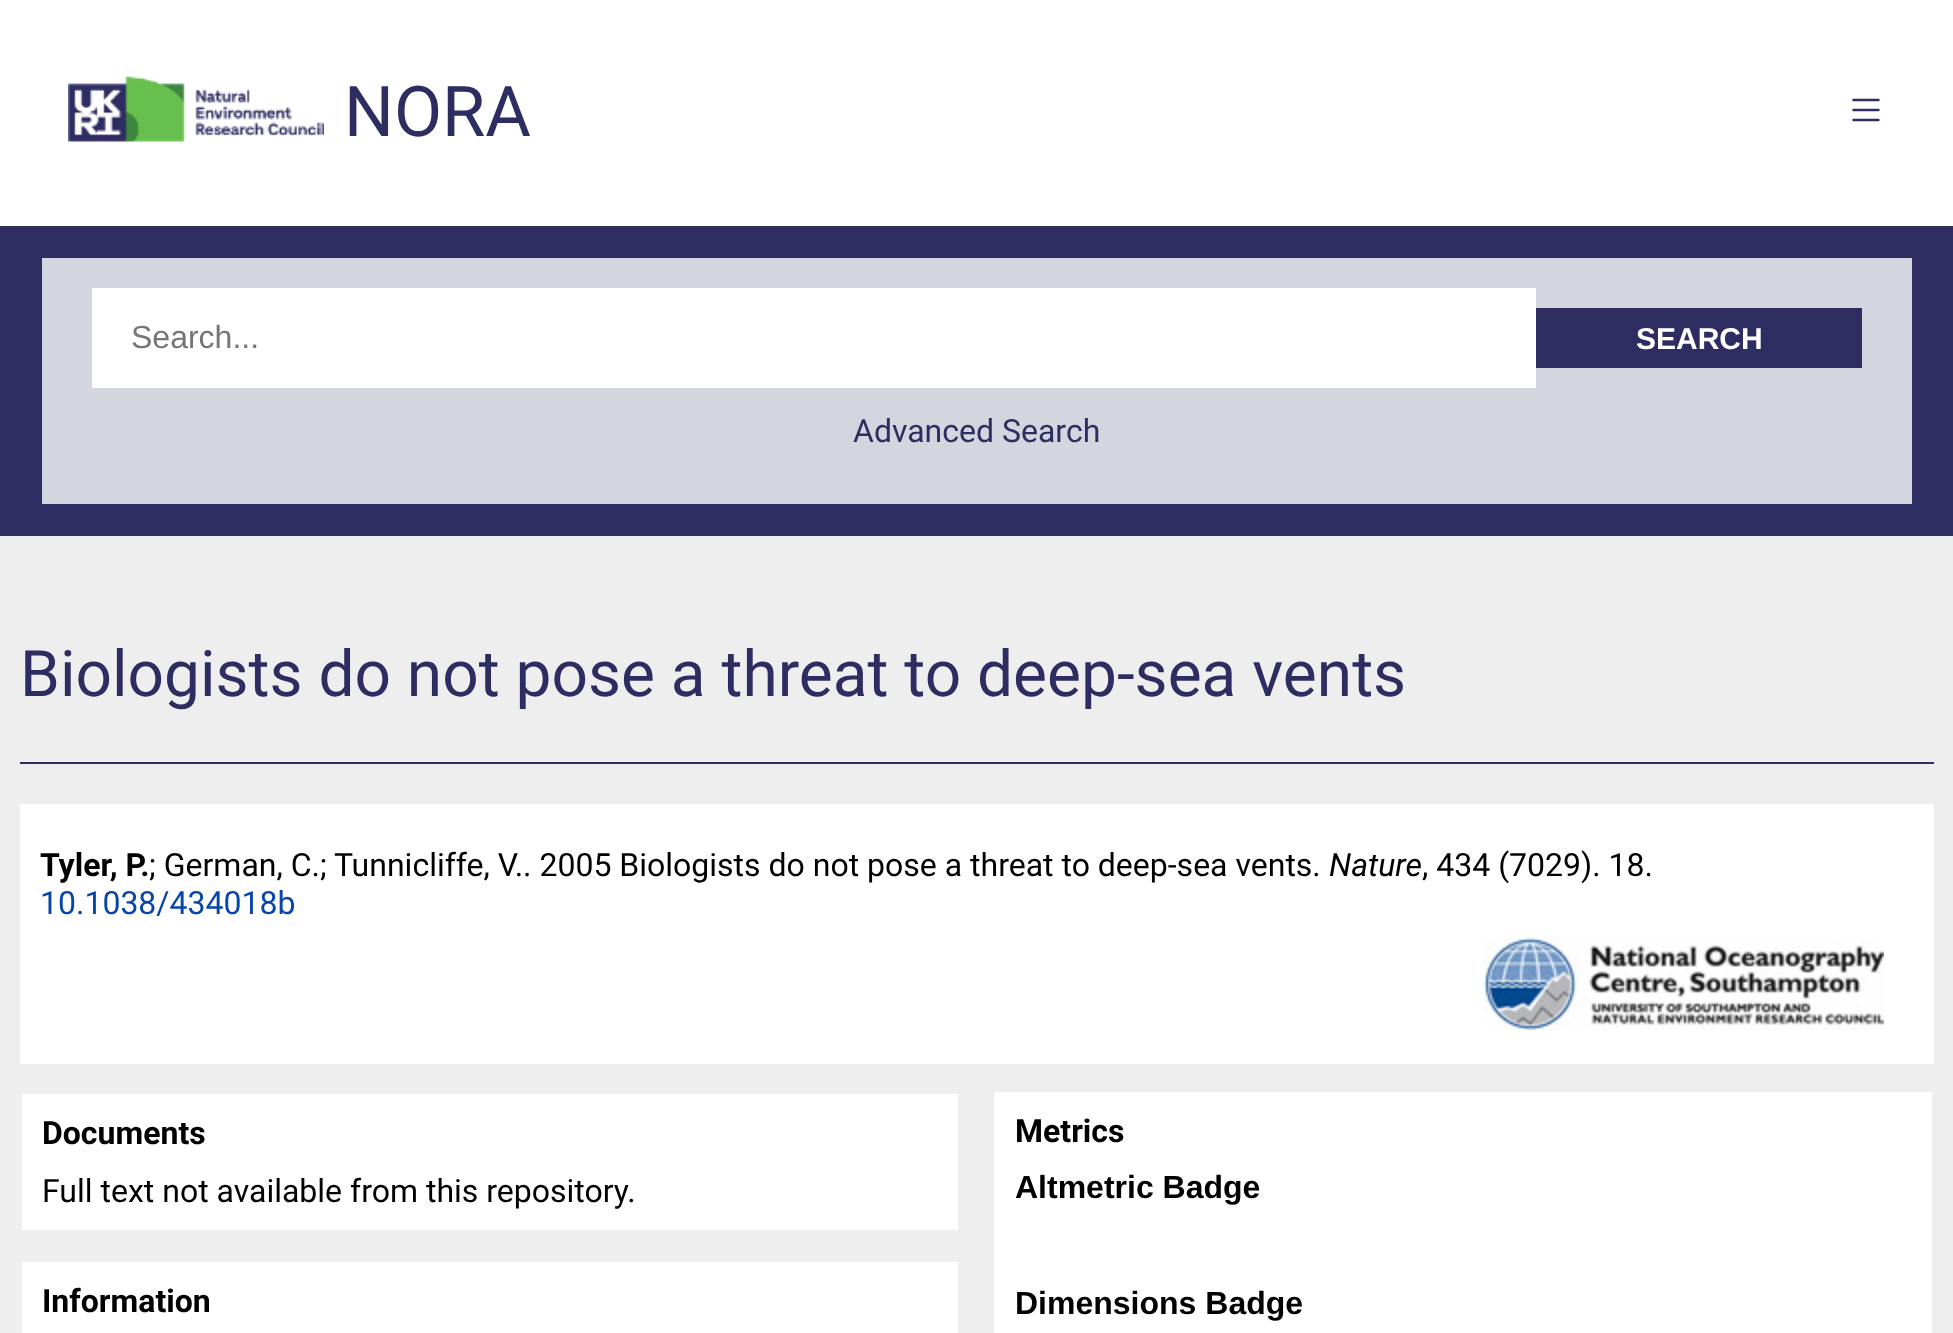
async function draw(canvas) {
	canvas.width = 1953;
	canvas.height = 1333;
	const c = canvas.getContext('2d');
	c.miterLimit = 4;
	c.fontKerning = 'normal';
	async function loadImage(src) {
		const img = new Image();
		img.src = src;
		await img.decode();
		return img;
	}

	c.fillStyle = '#eee';
	c.fillRect(0, 0, 1953, 1333);
	c.fillStyle = '#fff';
	c.fillRect(0, 0, 1953, 226);
	c.drawImage(await loadImage('img1.png'), 68, 76, 256, 66);
	c.font = '70px Roboto';
	c.fillStyle = '#2e2d62';
	c.fillText('NORA', 344, 136);
	c.drawImage(await loadImage('img2.png'), 1852, 98, 28, 24);
	for (const [x, y, w, h, color] of [
		[0, 226, 1953, 310, '#2e2d62'],
		[42, 258, 1870, 246, '#d5d5df'],
		[92, 288, 1444, 100, '#fff'],
	]) {
		c.fillStyle = color;
		c.fillRect(x, y, w, h);
	}
	c.font = '32px Liberation Sans';
	c.fillStyle = '#757575';
	c.fillText('Search...', 131, 348);
	c.fillStyle = '#2e2d62';
	c.fillRect(1536, 308, 326, 60);
	c.font = 'bold 30px Liberation Sans';
	c.fillStyle = '#fff';
	c.fillText('SEARCH', 1636, 349);
	c.font = '32px Roboto';
	c.fillStyle = '#2e2d62';
	c.fillText('Advanced Search', 853, 442);
	c.font = '64px Roboto';
	c.fillText('Biologists do not pose a threat to deep-sea vents', 20, 696);
	c.fillRect(20, 762, 1914, 2);
	c.fillStyle = '#fff';
	c.fillRect(20, 804, 1914, 260);
	c.font = 'bold 32px Roboto';
	c.fillStyle = '#000';
	c.fillText('Tyler, P.', 40, 876);
	c.font = '32px Roboto';
	c.fillText('; German, C.;', 149, 876);
	c.fillText('Tunnicliffe, V.. 2005 Biologists do not pose a threat to deep-sea vents.', 334, 876);
	c.font = 'italic 32px Roboto';
	c.fillText('Nature', 1329, 876);
	c.font = '32px Roboto';
	c.fillText(', 434 (7029). 18.', 1422, 876);
	c.fillStyle = '#0645ad';
	c.fillText('10.1038/434018b', 40, 914);
	c.drawImage(await loadImage('img3.png'), 1484, 938, 400, 92);
	c.fillStyle = '#fff';
	c.fillRect(22, 1094, 936, 136);
	c.font = 'bold 32px Roboto';
	c.fillStyle = '#000';
	c.fillText('Documents', 42, 1144);
	c.font = '32px Roboto';
	c.fillText('Full text not available from this repository.', 42, 1202);
	c.fillStyle = '#fff';
	c.fillRect(994, 1092, 938, 241);
	c.font = 'bold 32px Roboto';
	c.fillStyle = '#000';
	c.fillText('Metrics', 1015, 1142);
	c.font = 'bold 32px Liberation Sans';
	c.fillText('Altmetric Badge', 1015, 1198);
	c.fillText('Dimensions Badge', 1015, 1314);
	c.fillStyle = '#fff';
	c.fillRect(22, 1262, 936, 71);
	c.font = 'bold 32px Roboto';
	c.fillStyle = '#000';
	c.fillText('Information', 42, 1312);
}

draw(document.querySelector('canvas'));
